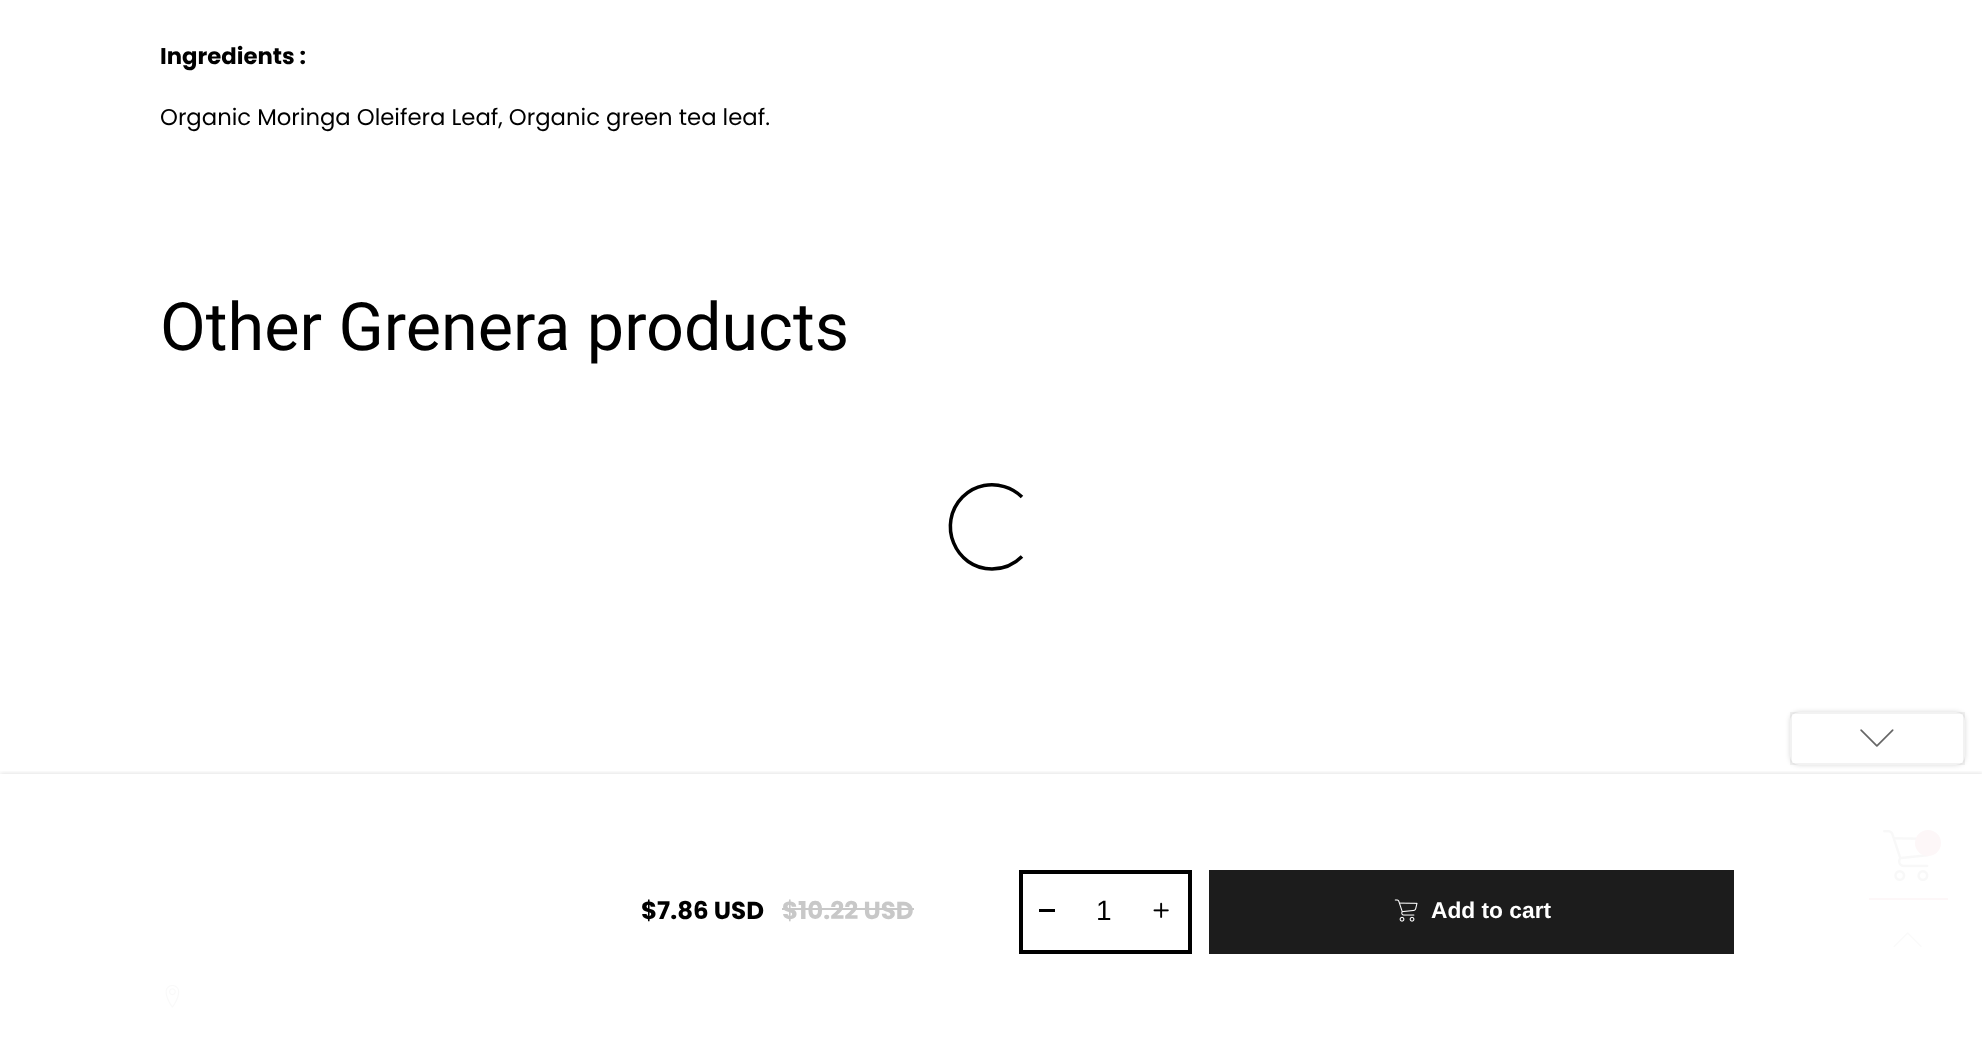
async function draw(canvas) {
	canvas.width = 1982;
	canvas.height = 1048;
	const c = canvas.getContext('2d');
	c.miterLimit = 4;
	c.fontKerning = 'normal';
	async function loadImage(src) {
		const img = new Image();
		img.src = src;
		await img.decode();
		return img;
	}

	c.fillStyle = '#fff';
	c.fillRect(0, 0, 1982, 1048);
	c.font = 'bold 22.75px Poppins';
	c.fillStyle = '#000';
	c.fillText('Ingredients :', 160, 64);
	c.font = '22.75px Poppins';
	c.fillText('Organic Moringa Oleifera Leaf, Organic green tea leaf.', 160, 125);
	c.font = '66.5px Roboto';
	c.fillText('Other Grenera products', 160, 350);
	c.beginPath();
	c.moveTo(1022, 556.5);
	c.bezierCurveTo(1014, 564.5, 1003.5, 569, 992, 569);
	c.bezierCurveTo(955, 569, 936.5, 523.5, 962.5, 497);
	c.bezierCurveTo(968.5, 491, 976, 487, 984, 485.5);
	c.bezierCurveTo(997.5, 483, 1012, 487, 1022, 497);
	c.strokeStyle = '#000';
	c.lineWidth = 3.5;
	c.stroke();
	c.fillStyle = '#fdf7f8';
	c.fillRect(1869, 898, 79, 2);
	c.drawImage(await loadImage('img4.png'), 1883, 830, 48, 52);
	c.beginPath();
	c.arc(1928, 843, 13, 0, 2 * Math.PI);
	c.fill();
	c.drawImage(await loadImage('img5.png'), 1893, 932, 29, 16);
	c.drawImage(await loadImage('img6.png'), 165, 984, 15, 24);
	c.save();
	c.beginPath();
	c.rect(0, 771, 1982, 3);
	c.clip();
	c.fillStyle = '#00000026';
	c.filter = 'blur(2.5px)';
	c.beginPath();
	c.rect(0, 774, 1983, 274);
	c.fill();
	c.filter = 'none';
	c.restore();
	c.fillStyle = '#00000026';
	c.filter = 'blur(2.5px)';
	c.beginPath();
	c.roundRect(1790, 712, 175, 53, 9);
	c.fill();
	c.filter = 'none';
	c.fillStyle = '#fff';
	c.beginPath();
	c.roundRect(1790, 712, 175, 53, 9);
	c.fill();
	c.strokeStyle = '#0000000d';
	c.lineWidth = 2;
	c.strokeRect(1791, 713, 173, 51);
	c.drawImage(await loadImage('img1.png'), 1860, 729, 34, 18);
	c.font = 'bold 24.5px Poppins';
	c.fillStyle = '#000';
	c.fillText('$7.86 USD', 641, 919);
	c.fillStyle = '#c8c8c8';
	c.fillText('$10.22 USD', 782, 919);
	c.fillRect(782, 908, 132, 2);
	c.strokeStyle = '#000';
	c.lineWidth = 4;
	c.strokeRect(1021, 872, 169, 80);
	c.fillStyle = '#000';
	c.fillRect(1039, 909, 16, 3);
	c.font = '28px Liberation Sans';
	c.fillText('1', 1096, 920);
	c.drawImage(await loadImage('img2.png'), 1153, 902, 16, 16);
	c.fillStyle = '#1c1c1c';
	c.fillRect(1209, 870, 525, 84);
	c.drawImage(await loadImage('img3.png'), 1394, 899, 24, 23);
	c.font = 'bold 22.75px Liberation Sans';
	c.fillStyle = '#fff';
	c.fillText('Add to cart', 1431, 918);
}

draw(document.querySelector('canvas'));
